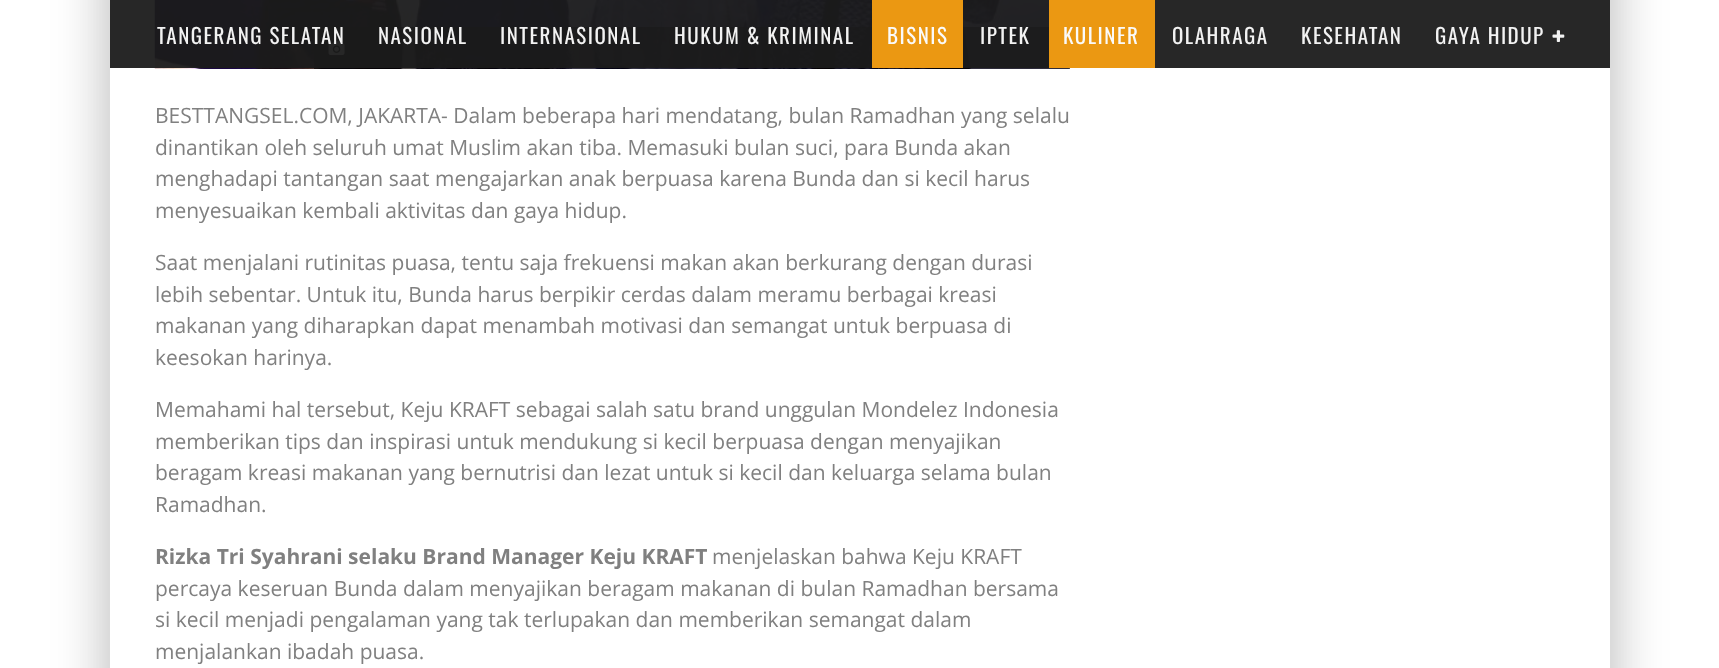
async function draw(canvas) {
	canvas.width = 1719;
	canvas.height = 668;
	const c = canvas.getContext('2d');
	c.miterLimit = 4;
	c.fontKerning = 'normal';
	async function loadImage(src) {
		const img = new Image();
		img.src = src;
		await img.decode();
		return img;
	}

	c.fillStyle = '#fff';
	c.fillRect(0, 0, 1719, 668);
	c.fillStyle = '#00000026';
	c.filter = 'blur(22.5px)';
	c.beginPath();
	c.rect(95, -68, 1500, 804);
	c.fill();
	c.filter = 'none';
	c.filter = 'blur(22.5px)';
	c.beginPath();
	c.rect(125, -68, 1500, 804);
	c.fill();
	c.filter = 'none';
	c.fillStyle = '#fff';
	c.fillRect(110, 0, 1500, 668);
	c.drawImage(await loadImage('img2.png'), 154, 0, 916, 69);
	c.fillStyle = '#000000a6';
	c.fillRect(314, 27, 756, 42);
	c.drawImage(await loadImage('img3.png'), 328, 41, 17, 15);
	c.fillStyle = '#1b1b1bf2';
	c.fillRect(110, 0, 1500, 68);
	c.letterSpacing = '1.5px';
	c.font = '21px Oswald';
	c.fillStyle = '#f2f2f2';
	for (const [text, x, y] of [
		['TANGERANG SELATAN', 157, 44],
		['NASIONAL', 378, 44],
		['INTERNASIONAL', 500, 44],
		['HUKUM & KRIMINAL', 674, 44],
	]) {
		c.fillText(text, x, y);
	}
	c.fillStyle = '#eb9812';
	c.fillRect(872, 0, 91, 68);
	c.fillStyle = '#fafafa';
	c.fillText('BISNIS', 887, 44);
	c.fillStyle = '#f2f2f2';
	c.fillText('IPTEK', 980, 44);
	c.fillStyle = '#eb9812';
	c.fillRect(1049, 0, 106, 68);
	c.fillStyle = '#fafafa';
	c.fillText('KULINER', 1063, 44);
	c.fillStyle = '#f2f2f2';
	for (const [text, x, y] of [
		['OLAHRAGA', 1172, 44],
		['KESEHATAN', 1301, 44],
		['GAYA HIDUP', 1435, 44],
	]) {
		c.fillText(text, x, y);
	}
	c.drawImage(await loadImage('img1.png'), 1552, 30, 13, 12);
	c.letterSpacing = '0px';
	c.font = '21px Open Sans';
	c.fillStyle = '#808080';
	for (const [text, x, y] of [
		['BESTTANGSEL.COM, JAKARTA- Dalam beberapa hari mendatang, bulan Ramadhan yang selalu', 155, 123],
		['dinantikan oleh seluruh umat Muslim akan tiba. Memasuki bulan suci, para Bunda akan', 155, 155],
		['menghadapi tantangan saat mengajarkan anak berpuasa karena Bunda dan si kecil harus', 155, 186],
		['menyesuaikan kembali aktivitas dan gaya hidup.', 155, 218],
		['Saat menjalani rutinitas puasa, tentu saja frekuensi makan akan berkurang dengan durasi', 155, 270],
		['lebih sebentar. Untuk itu, Bunda harus berpikir cerdas dalam meramu berbagai kreasi', 155, 302],
		['makanan yang diharapkan dapat menambah motivasi dan semangat untuk berpuasa di', 155, 333],
		['keesokan harinya.', 155, 365],
		['Memahami hal tersebut, Keju KRAFT sebagai salah satu brand unggulan Mondelez Indonesia', 155, 417],
		['memberikan tips dan inspirasi untuk mendukung si kecil berpuasa dengan menyajikan', 155, 449],
		['beragam kreasi makanan yang bernutrisi dan lezat untuk si kecil dan keluarga selama bulan', 155, 480],
		['Ramadhan.', 155, 512],
	]) {
		c.fillText(text, x, y);
	}
	c.font = 'bold 21px Open Sans';
	c.fillText('Rizka Tri Syahrani selaku Brand Manager Keju KRAFT', 155, 564);
	c.font = '21px Open Sans';
	for (const [text, x, y] of [
		['menjelaskan bahwa Keju KRAFT', 712, 564],
		['percaya keseruan Bunda dalam menyajikan beragam makanan di bulan Ramadhan bersama', 155, 596],
		['si kecil menjadi pengalaman yang tak terlupakan dan memberikan semangat dalam', 155, 627],
		['menjalankan ibadah puasa.', 155, 659],
	]) {
		c.fillText(text, x, y);
	}
}

draw(document.querySelector('canvas'));
